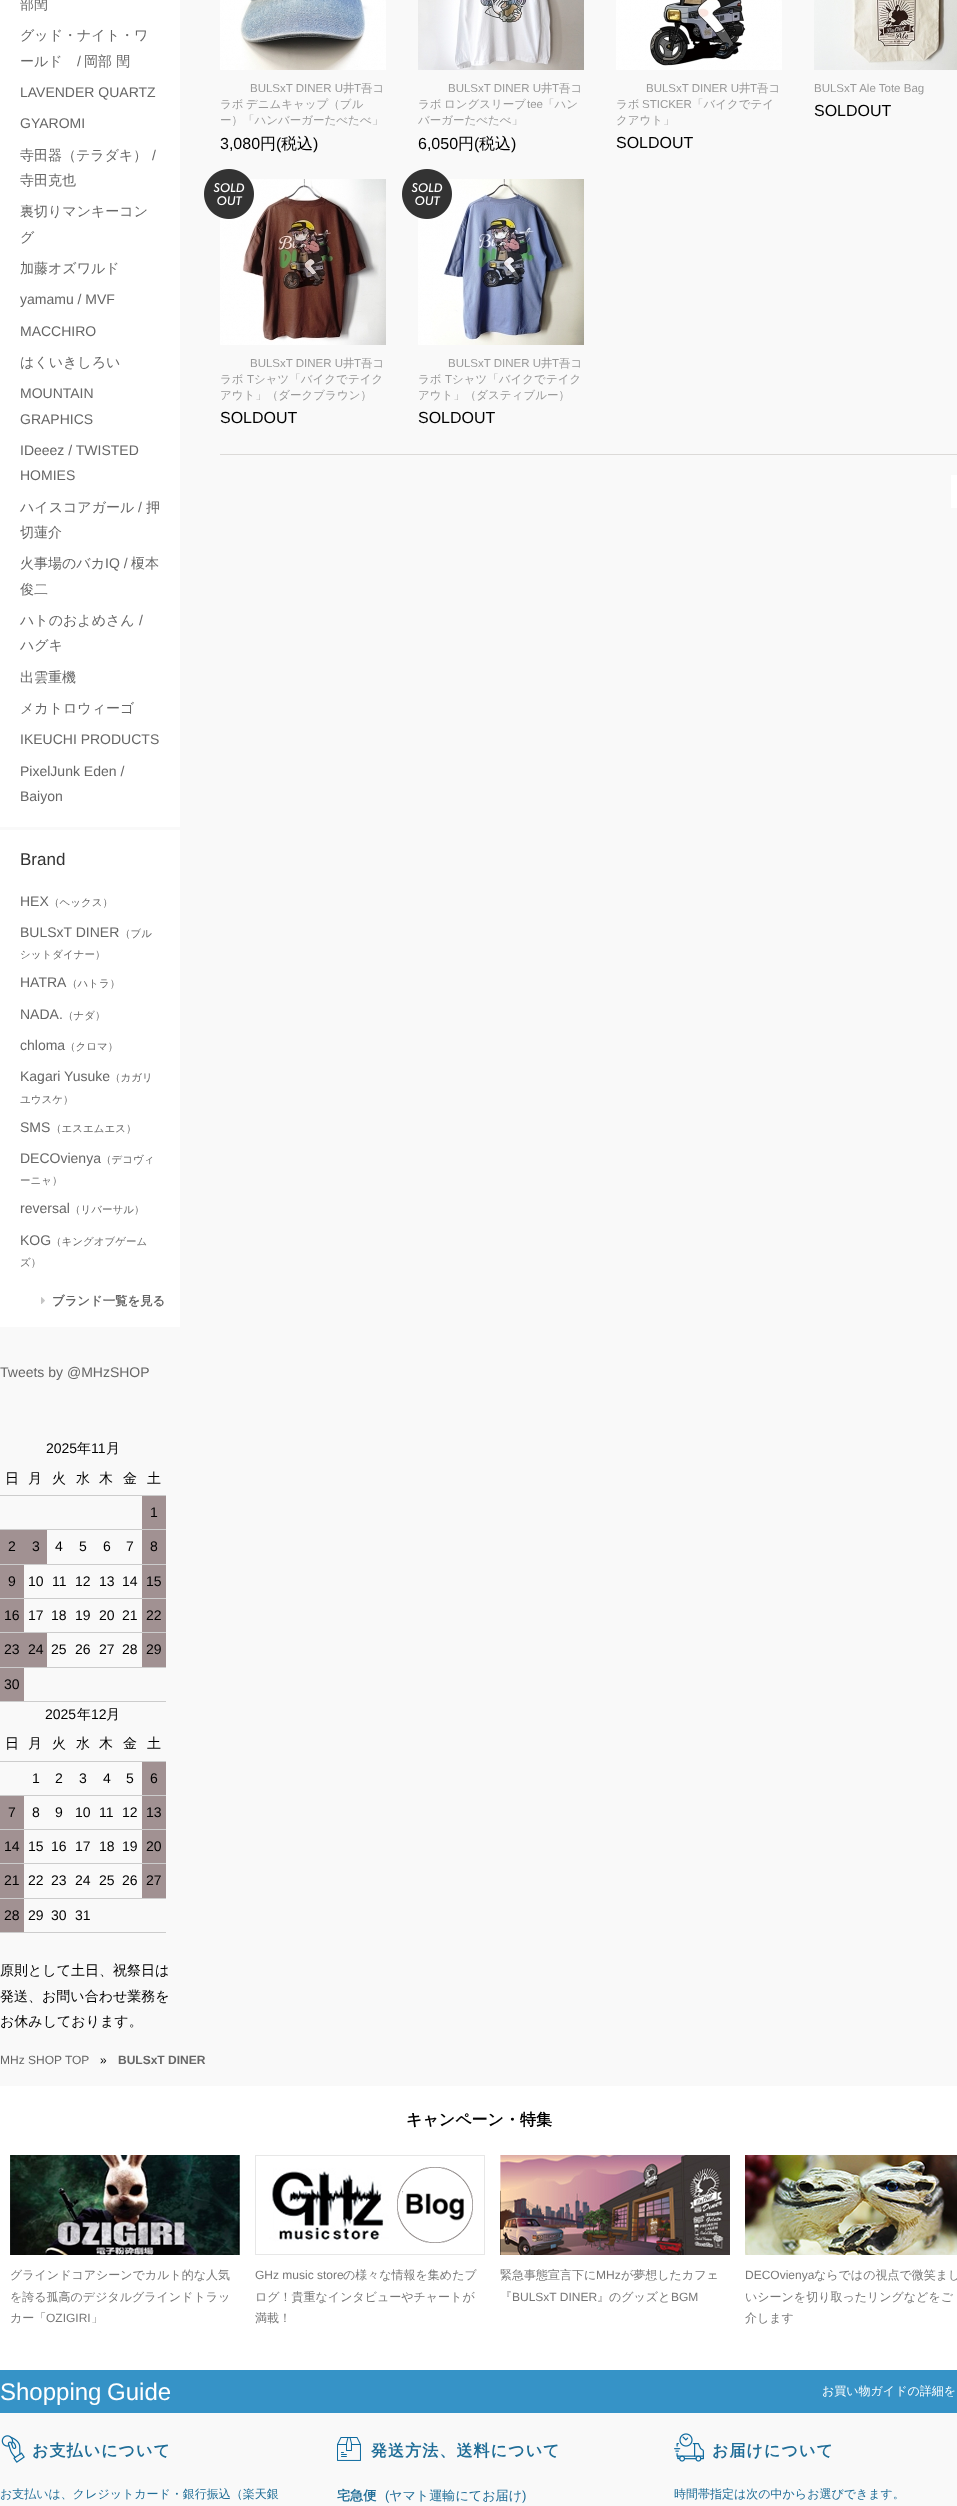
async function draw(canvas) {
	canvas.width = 957;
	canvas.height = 2506;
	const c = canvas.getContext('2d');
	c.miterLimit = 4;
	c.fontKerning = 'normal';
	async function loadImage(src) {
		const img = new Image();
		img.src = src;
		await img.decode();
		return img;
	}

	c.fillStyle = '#f9f9f9';
	c.fillRect(0, 0, 957, 2506);
	c.fillStyle = '#fff';
	c.fillRect(0, 0, 180, 827);
	c.font = '500 14px WenQuanYi Zen Hei';
	c.fillStyle = '#666';
	for (const [text, x, y] of [
		['部閏', 20, 9],
		['グッド・ナイト・ワ', 20, 40],
		['ールド', 20, 66],
	]) {
		c.fillText(text, x, y);
	}
	c.font = '14px Liberation Sans';
	c.fillText('/', 77, 66);
	c.font = '500 14px WenQuanYi Zen Hei';
	c.fillText('岡部 閏', 84, 66);
	c.font = '14px Liberation Sans';
	c.fillText('LAVENDER QUARTZ', 20, 97);
	c.fillText('GYAROMI', 20, 128);
	c.font = '500 14px WenQuanYi Zen Hei';
	c.fillText('寺田器（テラダキ）', 20, 160);
	c.font = '14px Liberation Sans';
	c.fillText('/', 152, 160);
	c.font = '500 14px WenQuanYi Zen Hei';
	for (const [text, x, y] of [
		['寺田克也', 20, 185],
		['裏切りマンキーコン', 20, 216],
		['グ', 20, 242],
		['加藤オズワルド', 20, 273],
	]) {
		c.fillText(text, x, y);
	}
	c.font = '14px Liberation Sans';
	c.fillText('yamamu / MVF', 20, 304);
	c.fillText('MACCHIRO', 20, 336);
	c.font = '500 14px WenQuanYi Zen Hei';
	c.fillText('はくいきしろい', 20, 367);
	c.font = '14px Liberation Sans';
	for (const [text, x, y] of [
		['MOUNTAIN', 20, 398],
		['GRAPHICS', 20, 424],
		['IDeeez / TWISTED', 20, 455],
		['HOMIES', 20, 480],
	]) {
		c.fillText(text, x, y);
	}
	c.font = '500 14px WenQuanYi Zen Hei';
	c.fillText('ハイスコアガール', 20, 512);
	c.font = '14px Liberation Sans';
	c.fillText('/', 138, 512);
	c.font = '500 14px WenQuanYi Zen Hei';
	for (const [text, x, y] of [
		['押', 146, 512],
		['切蓮介', 20, 537],
		['火事場のバカ', 20, 568],
	]) {
		c.fillText(text, x, y);
	}
	c.font = '14px Liberation Sans';
	c.fillText('IQ /', 105, 568);
	c.font = '500 14px WenQuanYi Zen Hei';
	for (const [text, x, y] of [
		['榎本', 131, 568],
		['俊二', 20, 594],
		['ハトのおよめさん', 20, 625],
	]) {
		c.fillText(text, x, y);
	}
	c.font = '14px Liberation Sans';
	c.fillText('/', 139, 625);
	c.font = '500 14px WenQuanYi Zen Hei';
	for (const [text, x, y] of [
		['ハグキ', 20, 650],
		['出雲重機', 20, 682],
		['メカトロウィーゴ', 20, 713],
	]) {
		c.fillText(text, x, y);
	}
	c.font = '14px Liberation Sans';
	for (const [text, x, y] of [
		['IKEUCHI PRODUCTS', 20, 744],
		['PixelJunk Eden /', 20, 776],
		['Baiyon', 20, 801],
	]) {
		c.fillText(text, x, y);
	}
	c.fillStyle = '#fff';
	c.fillRect(0, 830, 180, 497);
	c.font = '17px Liberation Sans';
	c.fillStyle = '#333';
	c.fillText('Brand', 20, 865);
	c.font = '14px Liberation Sans';
	c.fillStyle = '#666';
	c.fillText('HEX', 20, 906);
	c.font = '500 10.5px WenQuanYi Zen Hei';
	c.fillText('（ヘックス）', 49, 906);
	c.font = '14px Liberation Sans';
	c.fillText('BULSxT DINER', 20, 937);
	c.font = '500 10.5px WenQuanYi Zen Hei';
	c.fillText('（ブル', 120, 937);
	c.fillText('シットダイナー）', 20, 958);
	c.font = '14px Liberation Sans';
	c.fillText('HATRA', 20, 987);
	c.font = '500 10.5px WenQuanYi Zen Hei';
	c.fillText('（ハトラ）', 67, 987);
	c.font = '14px Liberation Sans';
	c.fillText('NADA.', 20, 1019);
	c.font = '500 10.5px WenQuanYi Zen Hei';
	c.fillText('（ナダ）', 63, 1019);
	c.font = '14px Liberation Sans';
	c.fillText('chloma', 20, 1050);
	c.font = '500 10.5px WenQuanYi Zen Hei';
	c.fillText('（クロマ）', 65, 1050);
	c.font = '14px Liberation Sans';
	c.fillText('Kagari Yusuke', 20, 1081);
	c.font = '500 10.5px WenQuanYi Zen Hei';
	c.fillText('（カガリ', 110, 1081);
	c.fillText('ユウスケ）', 20, 1103);
	c.font = '14px Liberation Sans';
	c.fillText('SMS', 20, 1132);
	c.font = '500 10.5px WenQuanYi Zen Hei';
	c.fillText('（エスエムエス）', 51, 1132);
	c.font = '14px Liberation Sans';
	c.fillText('DECOvienya', 20, 1163);
	c.font = '500 10.5px WenQuanYi Zen Hei';
	c.fillText('（デコヴィ', 101, 1163);
	c.fillText('ーニャ）', 20, 1184);
	c.font = '14px Liberation Sans';
	c.fillText('reversal', 20, 1213);
	c.font = '500 10.5px WenQuanYi Zen Hei';
	c.fillText('（リバーサル）', 70, 1213);
	c.font = '14px Liberation Sans';
	c.fillText('KOG', 20, 1245);
	c.font = '500 10.5px WenQuanYi Zen Hei';
	c.fillText('（キングオブゲーム', 51, 1245);
	c.fillText('ズ）', 20, 1266);
	c.drawImage(await loadImage('img1.png'), 41, 1297, 4, 7);
	c.font = 'bold 12.4px WenQuanYi Zen Hei';
	c.fillText('ブランド一覧を見る', 52, 1305);
	c.font = '14px Liberation Sans';
	c.fillText('Tweets by @MHzSHOP', 0, 1377);
	c.fillStyle = '#000';
	c.fillText('2025', 46, 1453);
	c.font = '500 14px WenQuanYi Zen Hei';
	c.fillText('年', 77, 1453);
	c.font = '14px Liberation Sans';
	c.fillText('11', 91, 1453);
	c.font = '500 14px WenQuanYi Zen Hei';
	for (const [text, x, y] of [
		['月', 106, 1453],
		['日', 5, 1483],
		['月', 28, 1483],
		['火', 52, 1483],
		['水', 76, 1483],
		['木', 99, 1483],
		['金', 123, 1483],
	]) {
		c.fillText(text, x, y);
	}
	c.fillStyle = '#ccc';
	c.fillRect(0, 1495, 166, 1);
	c.fillStyle = '#000';
	c.fillText('土', 147, 1483);
	c.fillStyle = '#a19192';
	c.fillRect(142, 1496, 24, 33);
	c.fillStyle = '#ccc';
	c.fillRect(0, 1529, 166, 1);
	c.font = '14px Liberation Sans';
	c.fillStyle = '#000';
	c.fillText('1', 150, 1517);
	c.fillStyle = '#a19192';
	c.fillRect(0, 1530, 47, 34);
	c.fillStyle = '#000';
	for (const [text, x, y] of [
		['2', 8, 1551],
		['3', 32, 1551],
		['4', 55, 1551],
		['5', 79, 1551],
		['6', 103, 1551],
		['7', 126, 1551],
	]) {
		c.fillText(text, x, y);
	}
	c.fillStyle = '#a19192';
	c.fillRect(142, 1530, 24, 34);
	c.fillStyle = '#ccc';
	c.fillRect(0, 1564, 166, 1);
	c.fillStyle = '#000';
	c.fillText('8', 150, 1551);
	c.fillStyle = '#a19192';
	c.fillRect(0, 1565, 24, 33);
	c.fillStyle = '#000';
	for (const [text, x, y] of [
		['9', 8, 1586],
		['10', 28, 1586],
		['11', 52, 1586],
		['12', 75, 1586],
		['13', 99, 1586],
		['14', 122, 1586],
	]) {
		c.fillText(text, x, y);
	}
	c.fillStyle = '#a19192';
	c.fillRect(142, 1565, 24, 33);
	c.fillStyle = '#ccc';
	c.fillRect(0, 1598, 166, 1);
	c.fillStyle = '#000';
	c.fillText('15', 146, 1586);
	c.fillStyle = '#a19192';
	c.fillRect(0, 1599, 24, 33);
	c.fillStyle = '#000';
	for (const [text, x, y] of [
		['16', 4, 1620],
		['17', 28, 1620],
		['18', 51, 1620],
		['19', 75, 1620],
		['20', 99, 1620],
		['21', 122, 1620],
	]) {
		c.fillText(text, x, y);
	}
	c.fillStyle = '#a19192';
	c.fillRect(142, 1599, 24, 33);
	c.fillStyle = '#ccc';
	c.fillRect(0, 1632, 166, 1);
	c.fillStyle = '#000';
	c.fillText('22', 146, 1620);
	c.fillStyle = '#a19192';
	c.fillRect(0, 1633, 47, 34);
	c.fillStyle = '#000';
	for (const [text, x, y] of [
		['23', 4, 1654],
		['24', 28, 1654],
		['25', 51, 1654],
		['26', 75, 1654],
		['27', 99, 1654],
		['28', 122, 1654],
	]) {
		c.fillText(text, x, y);
	}
	c.fillStyle = '#a19192';
	c.fillRect(142, 1633, 24, 34);
	c.fillStyle = '#ccc';
	c.fillRect(0, 1667, 166, 1);
	c.fillStyle = '#000';
	c.fillText('29', 146, 1654);
	c.fillStyle = '#a19192';
	c.fillRect(0, 1668, 24, 33);
	c.fillStyle = '#000';
	c.fillText('30', 4, 1689);
	c.fillStyle = '#ccc';
	c.fillRect(0, 1701, 166, 1);
	c.fillStyle = '#000';
	c.fillText('2025', 45, 1719);
	c.font = '500 14px WenQuanYi Zen Hei';
	c.fillText('年', 77, 1719);
	c.font = '14px Liberation Sans';
	c.fillText('12', 91, 1719);
	c.font = '500 14px WenQuanYi Zen Hei';
	for (const [text, x, y] of [
		['月', 106, 1719],
		['日', 5, 1748],
		['月', 28, 1748],
		['火', 52, 1748],
		['水', 76, 1748],
		['木', 99, 1748],
		['金', 123, 1748],
	]) {
		c.fillText(text, x, y);
	}
	c.fillStyle = '#ccc';
	c.fillRect(0, 1761, 166, 1);
	c.fillStyle = '#000';
	c.fillText('土', 147, 1748);
	c.font = '14px Liberation Sans';
	for (const [text, x, y] of [
		['1', 32, 1783],
		['2', 55, 1783],
		['3', 79, 1783],
		['4', 103, 1783],
		['5', 126, 1783],
	]) {
		c.fillText(text, x, y);
	}
	c.fillStyle = '#a19192';
	c.fillRect(142, 1762, 24, 33);
	c.fillStyle = '#ccc';
	c.fillRect(0, 1795, 166, 1);
	c.fillStyle = '#000';
	c.fillText('6', 150, 1783);
	c.fillStyle = '#a19192';
	c.fillRect(0, 1796, 24, 33);
	c.fillStyle = '#000';
	for (const [text, x, y] of [
		['7', 8, 1817],
		['8', 32, 1817],
		['9', 55, 1817],
		['10', 75, 1817],
		['11', 99, 1817],
		['12', 122, 1817],
	]) {
		c.fillText(text, x, y);
	}
	c.fillStyle = '#a19192';
	c.fillRect(142, 1796, 24, 33);
	c.fillStyle = '#ccc';
	c.fillRect(0, 1829, 166, 1);
	c.fillStyle = '#000';
	c.fillText('13', 146, 1817);
	c.fillStyle = '#a19192';
	c.fillRect(0, 1830, 24, 33);
	c.fillStyle = '#000';
	for (const [text, x, y] of [
		['14', 4, 1851],
		['15', 28, 1851],
		['16', 51, 1851],
		['17', 75, 1851],
		['18', 99, 1851],
		['19', 122, 1851],
	]) {
		c.fillText(text, x, y);
	}
	c.fillStyle = '#a19192';
	c.fillRect(142, 1830, 24, 33);
	c.fillStyle = '#ccc';
	c.fillRect(0, 1863, 166, 1);
	c.fillStyle = '#000';
	c.fillText('20', 146, 1851);
	c.fillStyle = '#a19192';
	c.fillRect(0, 1864, 24, 34);
	c.fillStyle = '#000';
	for (const [text, x, y] of [
		['21', 4, 1885],
		['22', 28, 1885],
		['23', 51, 1885],
		['24', 75, 1885],
		['25', 99, 1885],
		['26', 122, 1885],
	]) {
		c.fillText(text, x, y);
	}
	c.fillStyle = '#a19192';
	c.fillRect(142, 1864, 24, 34);
	c.fillStyle = '#ccc';
	c.fillRect(0, 1898, 166, 1);
	c.fillStyle = '#000';
	c.fillText('27', 146, 1885);
	c.fillStyle = '#a19192';
	c.fillRect(0, 1899, 24, 33);
	c.fillStyle = '#000';
	for (const [text, x, y] of [
		['28', 4, 1920],
		['29', 28, 1920],
		['30', 51, 1920],
		['31', 75, 1920],
	]) {
		c.fillText(text, x, y);
	}
	c.fillStyle = '#ccc';
	c.fillRect(0, 1932, 166, 1);
	c.font = '500 14px WenQuanYi Zen Hei';
	c.fillStyle = '#000';
	for (const [text, x, y] of [
		['原則として土日、祝祭日は', 0, 1975],
		['発送、お問い合わせ業務を', 0, 2001],
		['お休みしております。', 0, 2026],
	]) {
		c.fillText(text, x, y);
	}
	c.drawImage(await loadImage('img2.png'), 220, 0, 166, 70);
	c.font = '11.5px Liberation Sans';
	c.fillStyle = '#999';
	c.fillText('BULSxT DINER U', 250, 92);
	c.font = '500 11.5px WenQuanYi Zen Hei';
	c.fillText('井', 343, 92);
	c.font = '11.5px Liberation Sans';
	c.fillText('T', 354, 92);
	c.font = '500 11.5px WenQuanYi Zen Hei';
	c.fillText('吾コ', 361, 92);
	c.wordSpacing = '-1px';
	c.fillText('ラボ デニムキャップ（ブル', 220, 108);
	c.wordSpacing = '0px';
	c.fillText('ー）「ハンバーガーたべたべ」', 220, 124);
	c.font = '16px Liberation Sans';
	c.fillStyle = '#000';
	c.fillText('3,080', 220, 149);
	c.font = '500 16px WenQuanYi Zen Hei';
	c.fillText('円', 260, 149);
	c.font = '16px Liberation Sans';
	c.fillText('(', 276, 149);
	c.font = '500 16px WenQuanYi Zen Hei';
	c.fillText('税込', 281, 149);
	c.font = '16px Liberation Sans';
	c.fillText(')', 313, 149);
	c.drawImage(await loadImage('img3.png'), 418, 0, 166, 70);
	c.font = '11.5px Liberation Sans';
	c.fillStyle = '#999';
	c.fillText('BULSxT DINER U', 448, 92);
	c.font = '500 11.5px WenQuanYi Zen Hei';
	c.fillText('井', 541, 92);
	c.font = '11.5px Liberation Sans';
	c.fillText('T', 552, 92);
	c.font = '500 11.5px WenQuanYi Zen Hei';
	c.fillText('吾コ', 559, 92);
	c.wordSpacing = '-1px';
	c.fillText('ラボ ロングスリーブ', 418, 108);
	c.wordSpacing = '0px';
	c.font = '11.5px Liberation Sans';
	c.fillText('tee', 527, 108);
	c.font = '500 11.5px WenQuanYi Zen Hei';
	c.fillText('「ハン', 543, 108);
	c.fillText('バーガーたべたべ」', 418, 124);
	c.font = '16px Liberation Sans';
	c.fillStyle = '#000';
	c.fillText('6,050', 418, 149);
	c.font = '500 16px WenQuanYi Zen Hei';
	c.fillText('円', 458, 149);
	c.font = '16px Liberation Sans';
	c.fillText('(', 474, 149);
	c.font = '500 16px WenQuanYi Zen Hei';
	c.fillText('税込', 479, 149);
	c.font = '16px Liberation Sans';
	c.fillText(')', 511, 149);
	c.drawImage(await loadImage('img4.png'), 616, 0, 166, 70);
	c.font = '11.5px Liberation Sans';
	c.fillStyle = '#999';
	c.fillText('BULSxT DINER U', 646, 92);
	c.font = '500 11.5px WenQuanYi Zen Hei';
	c.fillText('井', 739, 92);
	c.font = '11.5px Liberation Sans';
	c.fillText('T', 750, 92);
	c.font = '500 11.5px WenQuanYi Zen Hei';
	c.fillText('吾コ', 757, 92);
	c.fillText('ラボ', 616, 108);
	c.font = '11.5px Liberation Sans';
	c.fillText('STICKER', 642, 108);
	c.font = '500 11.5px WenQuanYi Zen Hei';
	c.fillText('「バイクでテイ', 692, 108);
	c.fillText('クアウト」', 616, 124);
	c.font = '16px Liberation Sans';
	c.fillStyle = '#000';
	c.fillText('SOLDOUT', 616, 148);
	c.drawImage(await loadImage('img5.png'), 814, 0, 143, 70);
	c.font = '11.5px Liberation Sans';
	c.fillStyle = '#999';
	c.fillText('BULSxT Ale Tote Bag', 814, 92);
	c.font = '16px Liberation Sans';
	c.fillStyle = '#000';
	c.fillText('SOLDOUT', 814, 116);
	c.drawImage(await loadImage('img6.png'), 220, 179, 166, 166);
	c.drawImage(await loadImage('img7.png'), 204, 169, 50, 50);
	c.font = '11.5px Liberation Sans';
	c.fillStyle = '#999';
	c.fillText('BULSxT DINER U', 250, 367);
	c.font = '500 11.5px WenQuanYi Zen Hei';
	c.fillText('井', 343, 367);
	c.font = '11.5px Liberation Sans';
	c.fillText('T', 354, 367);
	c.font = '500 11.5px WenQuanYi Zen Hei';
	c.fillText('吾コ', 361, 367);
	c.fillText('ラボ', 220, 383);
	c.font = '11.5px Liberation Sans';
	c.fillText('T', 247, 383);
	c.font = '500 11.5px WenQuanYi Zen Hei';
	c.fillText('シャツ「バイクでテイク', 254, 383);
	c.fillText('アウト」（ダークブラウン）', 220, 399);
	c.font = '16px Liberation Sans';
	c.fillStyle = '#000';
	c.fillText('SOLDOUT', 220, 423);
	c.drawImage(await loadImage('img8.png'), 418, 179, 166, 166);
	c.drawImage(await loadImage('img9.png'), 402, 169, 50, 50);
	c.font = '11.5px Liberation Sans';
	c.fillStyle = '#999';
	c.fillText('BULSxT DINER U', 448, 367);
	c.font = '500 11.5px WenQuanYi Zen Hei';
	c.fillText('井', 541, 367);
	c.font = '11.5px Liberation Sans';
	c.fillText('T', 552, 367);
	c.font = '500 11.5px WenQuanYi Zen Hei';
	c.fillText('吾コ', 559, 367);
	c.fillText('ラボ', 418, 383);
	c.font = '11.5px Liberation Sans';
	c.fillText('T', 445, 383);
	c.font = '500 11.5px WenQuanYi Zen Hei';
	c.fillText('シャツ「バイクでテイク', 452, 383);
	c.fillText('アウト」（ダスティブルー）', 418, 399);
	c.font = '16px Liberation Sans';
	c.fillStyle = '#000';
	c.fillText('SOLDOUT', 418, 423);
	c.fillStyle = '#dcdad8';
	c.fillRect(220, 454, 737, 1);
	c.fillStyle = '#fff';
	c.fillRect(951, 475, 6, 33);
	c.font = '12px Liberation Sans';
	c.fillStyle = '#666';
	c.fillText('MHz SHOP TOP', 0, 2064);
	c.fillStyle = '#000';
	c.fillText('»', 100, 2064);
	c.font = 'bold 12px Liberation Sans';
	c.fillStyle = '#666';
	c.fillText('BULSxT DINER', 118, 2064);
	c.fillStyle = '#fff';
	c.fillRect(0, 2086, 957, 284);
	c.font = 'bold 16px WenQuanYi Zen Hei';
	c.fillStyle = '#000';
	c.fillText('キャンペーン・特集', 406, 2125);
	c.drawImage(await loadImage('img10.png'), 10, 2155, 230, 100);
	c.font = '500 12px WenQuanYi Zen Hei';
	c.fillStyle = '#777';
	for (const [text, x, y] of [
		['グラインドコアシーンでカルト的な人気', 10, 2279],
		['を誇る孤高のデジタルグラインドトラッ', 10, 2301],
		['カー「', 10, 2322],
	]) {
		c.fillText(text, x, y);
	}
	c.font = '12px Liberation Sans';
	c.fillText('OZIGIRI', 46, 2322);
	c.font = '500 12px WenQuanYi Zen Hei';
	c.fillText('」', 91, 2322);
	c.drawImage(await loadImage('img11.png'), 255, 2155, 230, 100);
	c.font = '12px Liberation Sans';
	c.fillText('GHz music store', 255, 2279);
	c.font = '500 12px WenQuanYi Zen Hei';
	for (const [text, x, y] of [
		['の様々な情報を集めたブ', 343, 2279],
		['ログ！貴重なインタビューやチャートが', 255, 2301],
		['満載！', 255, 2322],
	]) {
		c.fillText(text, x, y);
	}
	c.drawImage(await loadImage('img12.png'), 500, 2155, 230, 100);
	c.fillText('緊急事態宣言下に', 500, 2279);
	c.font = '12px Liberation Sans';
	c.fillText('MHz', 596, 2279);
	c.font = '500 12px WenQuanYi Zen Hei';
	c.fillText('が夢想したカフェ', 621, 2279);
	c.fillText('『', 500, 2301);
	c.font = '12px Liberation Sans';
	c.fillText('BULSxT DINER', 512, 2301);
	c.font = '500 12px WenQuanYi Zen Hei';
	c.fillText('』のグッズと', 597, 2301);
	c.font = '12px Liberation Sans';
	c.fillText('BGM', 671, 2301);
	c.drawImage(await loadImage('img13.png'), 745, 2155, 212, 100);
	c.fillText('DECOvienya', 745, 2279);
	c.font = '500 12px WenQuanYi Zen Hei';
	for (const [text, x, y] of [
		['ならではの視点で微笑まし', 814, 2279],
		['いシーンを切り取ったリングなどをご', 745, 2301],
		['介します', 745, 2322],
	]) {
		c.fillText(text, x, y);
	}
	c.fillStyle = '#3693c7';
	c.fillRect(0, 2370, 957, 43);
	c.wordSpacing = '-1px';
	c.font = '24px Liberation Sans';
	c.fillStyle = '#fff';
	c.fillText('Shopping Guide', 0, 2400);
	c.wordSpacing = '0px';
	c.font = '500 12px WenQuanYi Zen Hei';
	c.fillText('お買い物ガイドの詳細を', 822, 2395);
	c.drawImage(await loadImage('img14.png'), 1, 2435, 24, 28);
	c.letterSpacing = '1.1px';
	c.font = 'bold 16px WenQuanYi Zen Hei';
	c.fillStyle = '#1f6d97';
	c.fillText('お支払いについて', 32, 2456);
	c.letterSpacing = '0px';
	c.font = '500 12px WenQuanYi Zen Hei';
	c.fillText('お支払いは、クレジットカード・銀行振込（楽天銀', 0, 2498);
	c.drawImage(await loadImage('img15.png'), 337, 2437, 24, 24);
	c.letterSpacing = '1.1px';
	c.font = 'bold 16px WenQuanYi Zen Hei';
	c.fillText('発送方法、送料について', 371, 2456);
	c.letterSpacing = '0px';
	c.font = 'bold 13.1px WenQuanYi Zen Hei';
	c.fillText('宅急便', 337, 2500);
	c.font = '13.1px Liberation Sans';
	c.fillText('(', 385, 2500);
	c.font = '500 13.1px WenQuanYi Zen Hei';
	c.fillText('ヤマト運輸にてお届け', 389, 2500);
	c.font = '13.1px Liberation Sans';
	c.fillText(')', 522, 2500);
	c.drawImage(await loadImage('img16.png'), 674, 2433, 30, 29);
	c.letterSpacing = '1.1px';
	c.font = 'bold 16px WenQuanYi Zen Hei';
	c.fillText('お届けについて', 712, 2456);
	c.letterSpacing = '0px';
	c.font = '500 12px WenQuanYi Zen Hei';
	c.fillText('時間帯指定は次の中からお選びできます。', 674, 2498);
}

draw(document.querySelector('canvas'));
